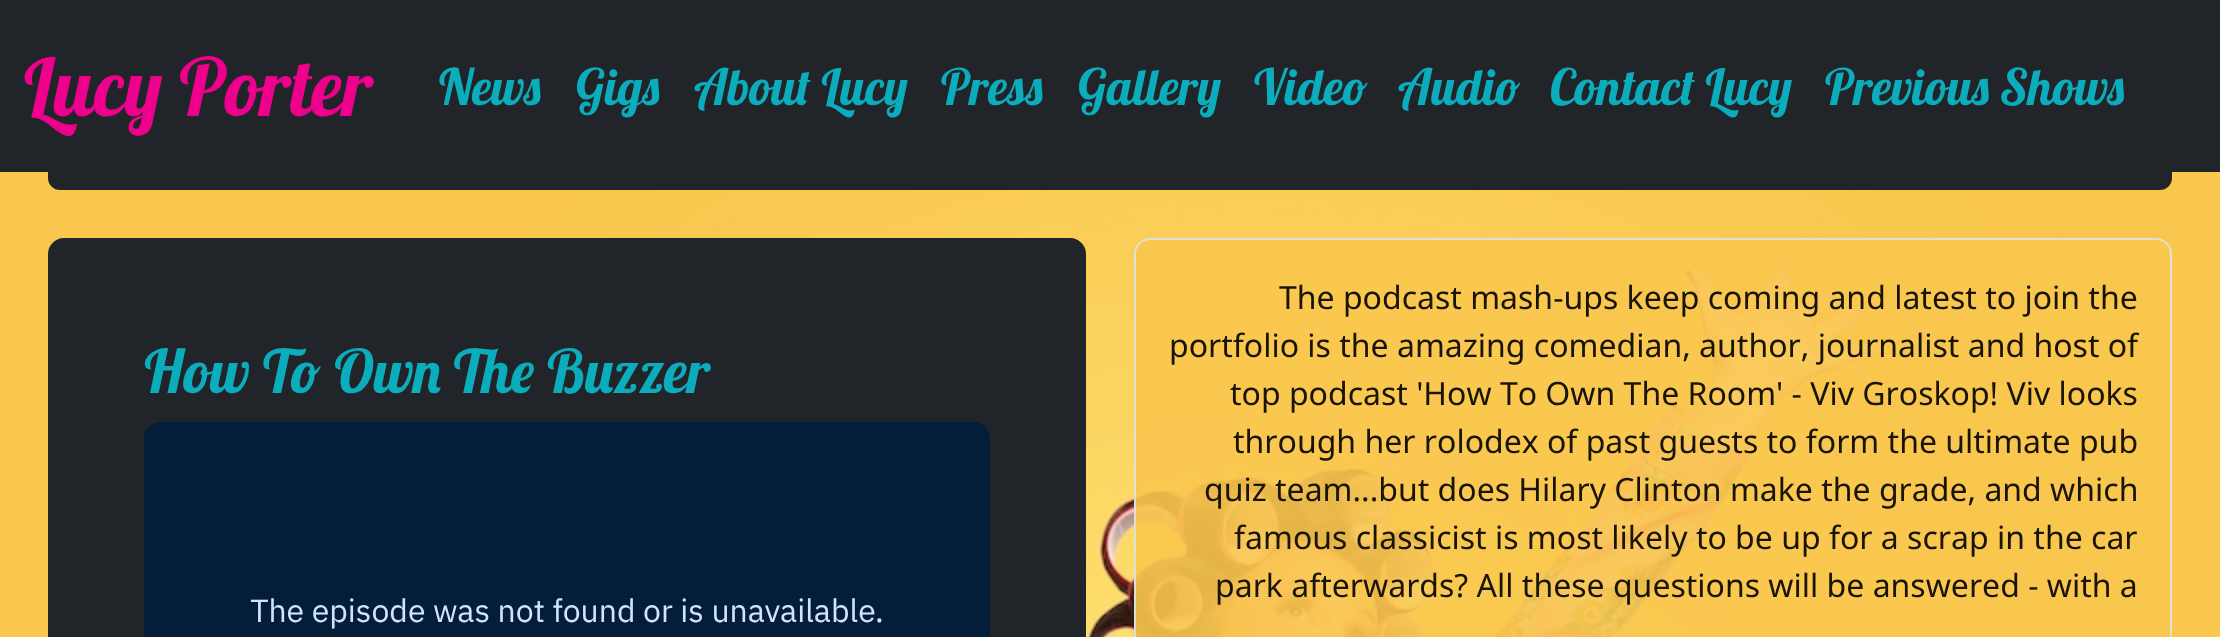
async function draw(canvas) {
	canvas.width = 2220;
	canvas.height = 637;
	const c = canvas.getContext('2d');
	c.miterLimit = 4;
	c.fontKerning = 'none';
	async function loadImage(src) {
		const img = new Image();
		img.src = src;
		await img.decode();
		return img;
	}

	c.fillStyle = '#f9c74e';
	c.fillRect(0, 0, 2220, 637);
	c.fillStyle = '#212529';
	c.beginPath();
	c.roundRect(48, -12, 2124, 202, 12);
	c.fill();
	c.fillRect(0, 0, 2220, 172);
	c.font = '80px Lobster';
	c.fillStyle = '#ed008b';
	c.fillText('Lucy Porter', 24, 116);
	c.font = '50px Lobster';
	c.fillStyle = '#0bacbb';
	for (const [text, x, y] of [
		['News', 439, 105],
		['Gigs', 576, 105],
		['About Lucy', 694, 105],
		['Press', 941, 105],
		['Gallery', 1078, 105],
		['Video', 1254, 105],
		['Audio', 1398, 105],
		['Contact Lucy', 1550, 105],
		['Previous Shows', 1825, 105],
	]) {
		c.fillText(text, x, y);
	}
	c.drawImage(await loadImage('img1.png'), 377, 190, 1762, 447);
	c.fillStyle = '#212529';
	c.beginPath();
	c.roundRect(48, 238, 1038, 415, 16);
	c.fill();
	c.font = '60px Lobster';
	c.fillStyle = '#0bacbb';
	c.fillText('How To Own The Buzzer', 144, 393);
	c.drawImage(await loadImage('img2.png'), 144, 422, 846, 215);
	c.fillStyle = '#f9c74ee6';
	c.beginPath();
	c.roundRect(1134, 238, 1038, 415, 16);
	c.fill();
	c.beginPath();
	c.roundRect(1135, 239, 1036, 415, 15);
	c.strokeStyle = '#dee2e6e6';
	c.lineWidth = 2;
	c.stroke();
	c.font = '32px Noto Sans';
	c.fillStyle = '#191408';
	for (const [text, x, y] of [
		['The podcast mash-ups keep coming and latest to join the', 1279, 309],
		['portfolio is the amazing comedian, author, journalist and host of', 1169, 357],
		['top podcast \'How To Own The Room\' - Viv Groskop! Viv looks', 1230, 405],
		['through her rolodex of past guests to form the ultimate pub', 1233, 453],
		['quiz team...but does Hilary Clinton make the grade, and which', 1204, 501],
		['famous classicist is most likely to be up for a scrap in the car', 1234, 549],
		['park afterwards? All these questions will be answered - with a', 1215, 597],
	]) {
		c.fillText(text, x, y);
	}
}

draw(document.querySelector('canvas'));
